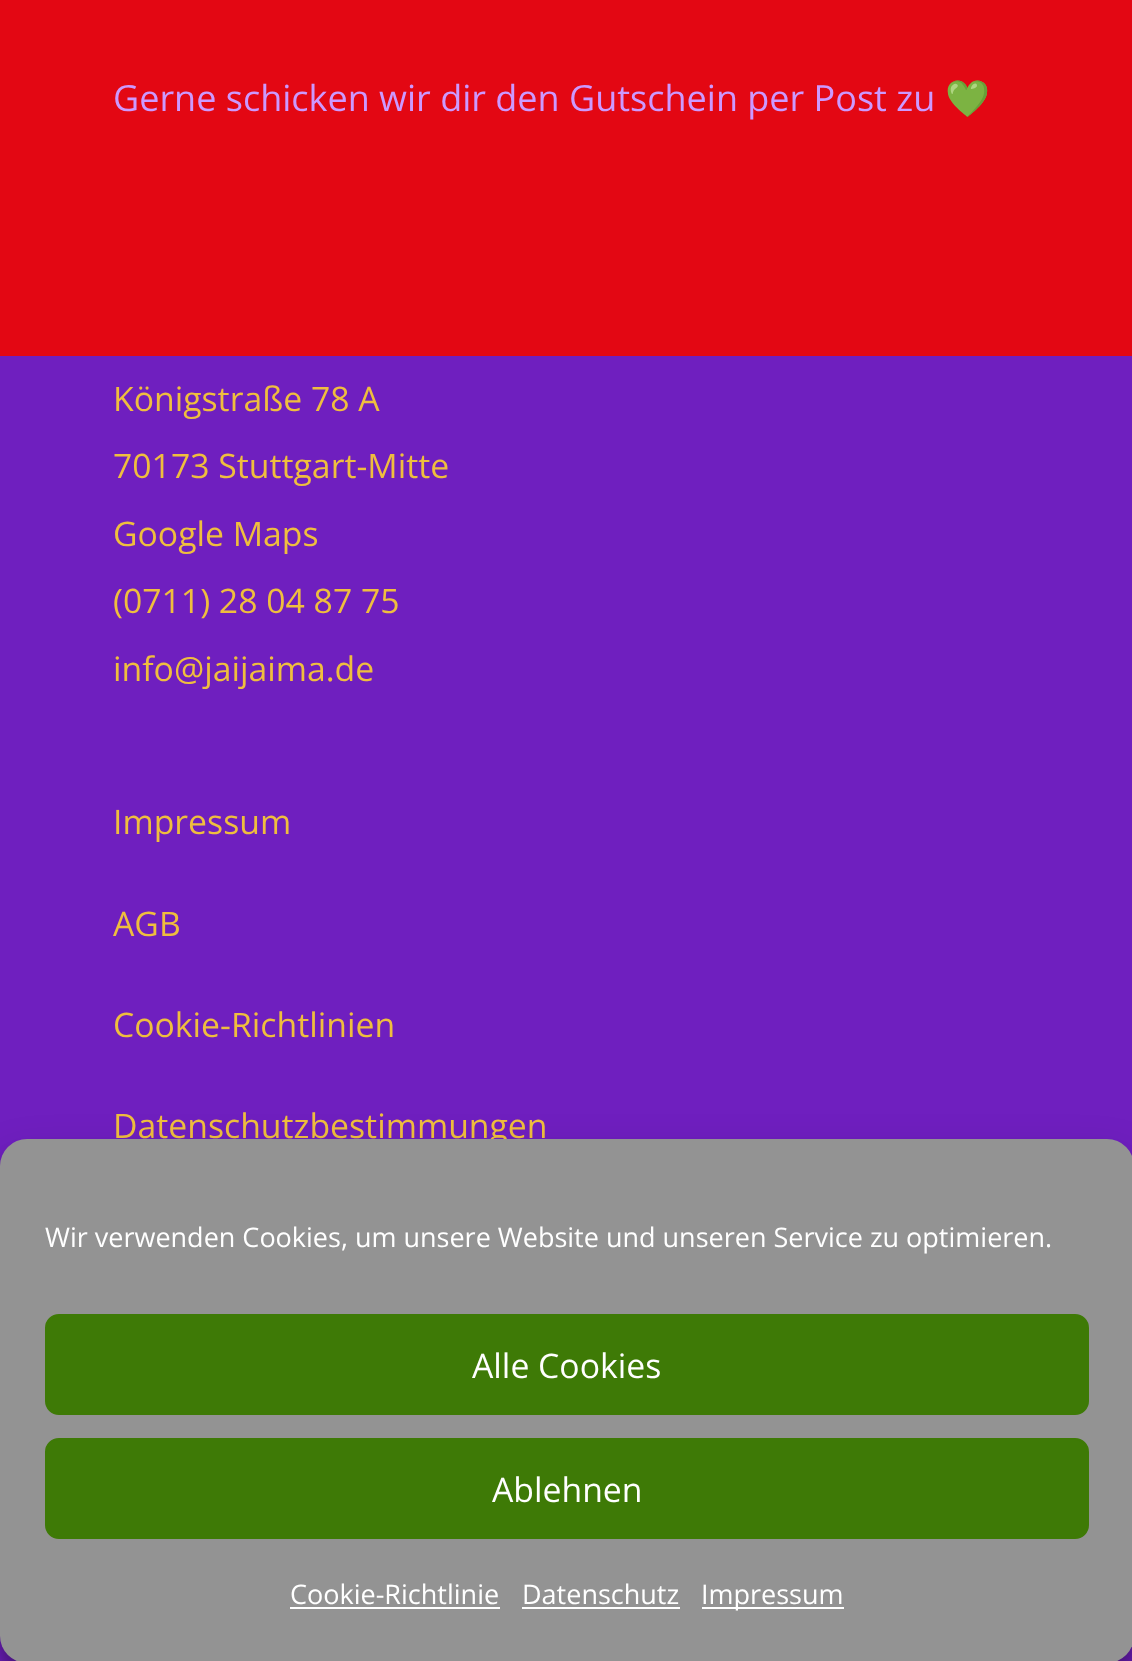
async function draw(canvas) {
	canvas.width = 1132;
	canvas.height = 1661;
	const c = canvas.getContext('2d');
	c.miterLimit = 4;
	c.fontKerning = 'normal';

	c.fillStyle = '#6f1fbf';
	c.fillRect(0, 0, 1132, 1661);
	c.fillStyle = '#e30713';
	c.fillRect(0, 0, 1132, 356);
	c.font = '36px Open Sans';
	c.fillStyle = '#c9f';
	c.fillText('Gerne schicken wir dir den Gutschein per Post zu', 113, 111);
	c.font = '36px Noto Color Emoji';
	c.fillText('💚', 945, 111);
	c.font = '33.75px Open Sans';
	c.fillStyle = '#efbe3e';
	for (const [text, x, y] of [
		['Königstraße 78 A', 113, 411],
		['70173 Stuttgart-Mitte', 113, 478],
		['Google Maps', 113, 546],
		['(0711) 28 04 87 75', 113, 613],
		['info@jaijaima.de', 113, 681],
		['Impressum', 113, 834],
		['AGB', 113, 936],
		['Cookie-Richtlinien', 113, 1037],
		['Datenschutzbestimmungen', 113, 1138],
	]) {
		c.fillText(text, x, y);
	}
	c.fillStyle = '#0000003b';
	c.filter = 'blur(7px)';
	c.beginPath();
	c.roundRect(0, 1152, 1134, 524, 27);
	c.fill();
	c.filter = 'none';
	c.fillStyle = '#00000030';
	c.filter = 'blur(22.5px)';
	c.beginPath();
	c.roundRect(0, 1161, 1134, 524, 27);
	c.fill();
	c.filter = 'none';
	c.fillStyle = '#939393';
	c.beginPath();
	c.roundRect(0, 1139, 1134, 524, 27);
	c.fill();
	c.font = '27px Open Sans';
	c.fillStyle = '#fff';
	c.fillText('Wir verwenden Cookies, um unsere Website und unseren Service zu optimieren.', 45, 1247);
	c.fillStyle = '#3e7a06';
	c.beginPath();
	c.roundRect(46, 1315, 1042, 99, 13);
	c.fill();
	c.strokeStyle = '#3e7a06';
	c.lineWidth = 2;
	c.stroke();
	c.font = '33.75px Open Sans';
	c.fillStyle = '#fff';
	c.fillText('Alle Cookies', 472, 1378);
	c.fillStyle = '#3e7a06';
	c.beginPath();
	c.roundRect(46, 1439, 1042, 99, 13);
	c.fill();
	c.stroke();
	c.fillStyle = '#fff';
	c.fillText('Ablehnen', 492, 1502);
	c.font = '27px Open Sans';
	c.fillText('Cookie-Richtlinie', 290, 1604);
	c.fillRect(290, 1607, 210, 2);
	c.fillText('Datenschutz', 522, 1604);
	c.fillRect(522, 1607, 158, 2);
	c.fillRect(702, 1607, 142, 2);
	c.fillText('Impressum', 701, 1604);
}

draw(document.querySelector('canvas'));
